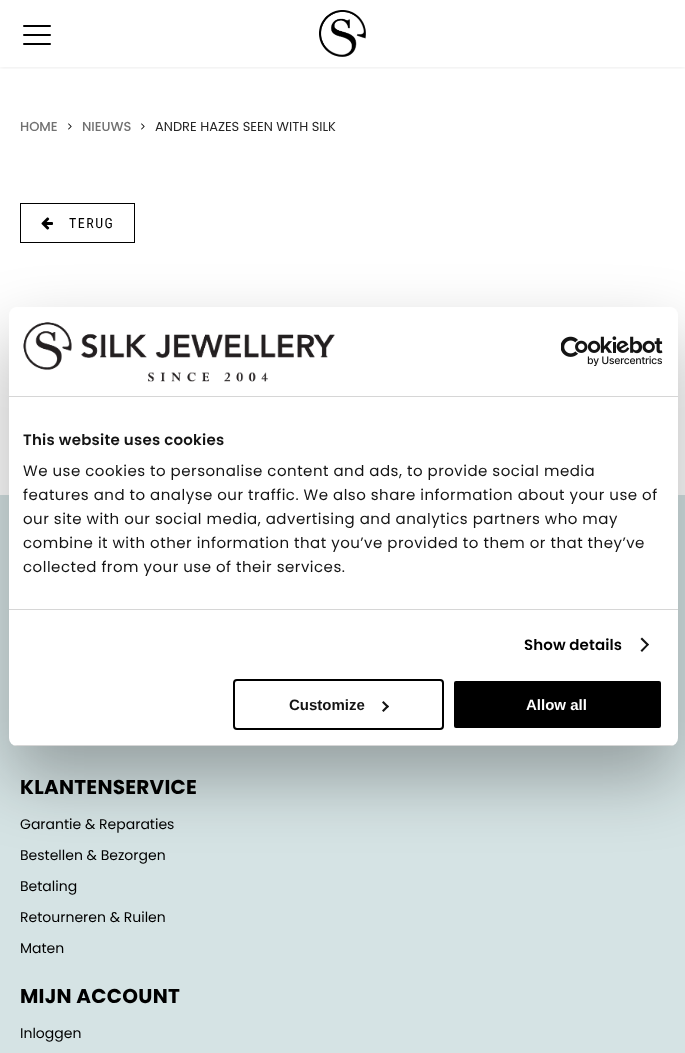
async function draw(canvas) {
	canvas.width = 685;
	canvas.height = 1053;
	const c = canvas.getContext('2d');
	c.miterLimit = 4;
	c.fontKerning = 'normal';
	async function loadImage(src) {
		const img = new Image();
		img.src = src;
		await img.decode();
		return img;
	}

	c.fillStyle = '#fff';
	c.fillRect(0, 0, 685, 1053);
	c.save();
	c.beginPath();
	c.rect(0, 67, 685, 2);
	c.clip();
	c.fillStyle = '#0000001a';
	c.filter = 'blur(2.5px)';
	c.beginPath();
	c.rect(0, 0, 685, 67);
	c.fill();
	c.filter = 'none';
	c.restore();
	c.fillStyle = '#000';
	c.beginPath();
	c.roundRect(23, 34, 28, 2, 1);
	c.fill();
	c.beginPath();
	c.roundRect(23, 25, 28, 2, 1);
	c.fill();
	c.beginPath();
	c.roundRect(23, 43, 28, 2, 1);
	c.fill();
	c.drawImage(await loadImage('img1.png'), 319, 10, 47, 47);
	c.font = '500 13px Poppins';
	c.fillStyle = '#717171';
	c.fillText('HOME', 20, 131);
	c.drawImage(await loadImage('img2.png'), 68, 123, 4, 7);
	c.fillText('NIEUWS', 82, 131);
	c.drawImage(await loadImage('img2.png'), 141, 123, 4, 7);
	c.font = '13px Poppins';
	c.fillStyle = '#262626';
	c.fillText('ANDRE HAZES SEEN WITH SILK', 155, 131);
	c.strokeStyle = '#000';
	c.strokeRect(20.5, 203.5, 114, 39);
	c.drawImage(await loadImage('img3.png'), 41, 217, 12, 13);
	c.letterSpacing = '1.5px';
	c.font = '14px Roboto Condensed';
	c.fillStyle = '#000';
	c.fillText('TERUG', 69, 228);
	c.fillStyle = '#d5e3e4';
	c.fillRect(0, 495, 685, 558);
	c.letterSpacing = '0.25px';
	c.font = 'bold 20px Poppins';
	c.fillStyle = '#000';
	c.fillText('KLANTENSERVICE', 20, 794);
	c.letterSpacing = '0px';
	c.font = '14px Poppins';
	for (const [text, x, y] of [
		['Garantie & Reparaties', 20, 829],
		['Bestellen & Bezorgen', 20, 860],
		['Betaling', 20, 891],
		['Retourneren & Ruilen', 20, 922],
		['Maten', 20, 953],
	]) {
		c.fillText(text, x, y);
	}
	c.letterSpacing = '0.25px';
	c.font = 'bold 20px Poppins';
	c.fillText('MIJN ACCOUNT', 20, 1003);
	c.letterSpacing = '0px';
	c.font = '14px Poppins';
	c.fillText('Inloggen', 20, 1038);
	c.fillStyle = '#0000004d';
	c.filter = 'blur(34px)';
	c.beginPath();
	c.roundRect(9, 339, 669, 439, 8);
	c.fill();
	c.filter = 'none';
	c.fillStyle = '#fff';
	c.beginPath();
	c.roundRect(9, 307, 669, 439, 8);
	c.fill();
	c.fillStyle = '#d6d6d6';
	c.fillRect(9, 396, 669, 1);
	c.drawImage(await loadImage('img4.png'), 23, 322, 312, 60);
	c.drawImage(await loadImage('img5.png'), 561, 336, 102, 30);
	c.fillRect(9, 609, 669, 1);
	c.letterSpacing = '0.25px';
	c.font = '600 15px Poppins';
	c.fillStyle = '#141414';
	c.fillText('This website uses cookies', 23, 445);
	c.letterSpacing = '0.5px';
	c.font = '15px Poppins';
	for (const [text, x, y] of [
		['We use cookies to personalise content and ads, to provide social media', 23, 476],
		['features and to analyse our traffic. We also share information about your use of', 23, 500],
		['our site with our social media, advertising and analytics partners who may', 23, 524],
		['combine it with other information that you’ve provided to them or that they’ve', 23, 548],
		['collected from your use of their services.', 23, 572],
	]) {
		c.fillText(text, x, y);
	}
	c.letterSpacing = '0.1px';
	c.font = '600 15px Poppins';
	c.fillStyle = '#000';
	c.fillText('Show details', 524, 650);
	c.fillStyle = '#141414';
	c.beginPath();
	c.moveTo(642, 637.5);
	c.lineTo(649, 644.5);
	c.lineTo(647.5, 646);
	c.lineTo(640.5, 639);
	c.closePath();
	c.fill();
	c.beginPath();
	c.moveTo(647.5, 643.5);
	c.lineTo(649, 644.5);
	c.lineTo(642, 652);
	c.lineTo(640.5, 650.5);
	c.closePath();
	c.fill();
	c.save();
	c.beginPath();
	c.roundRect(9, 307, 669, 439, 8);
	c.clip();
	c.fillStyle = '#d6d6d6';
	c.fillRect(9, 745, 669, 1);
	c.restore();
	c.beginPath();
	c.roundRect(234, 680, 209, 49, 3);
	c.lineWidth = 2;
	c.stroke();
	c.letterSpacing = '0px';
	c.font = 'bold 15px Liberation Sans';
	c.fillText('Customize', 289, 710);
	c.beginPath();
	c.moveTo(383.5, 701);
	c.lineTo(389, 706.5);
	c.lineTo(387.5, 708);
	c.lineTo(382, 702.5);
	c.closePath();
	c.fill();
	c.beginPath();
	c.moveTo(387.5, 705);
	c.lineTo(389, 706.5);
	c.lineTo(383.5, 712);
	c.lineTo(382, 710.5);
	c.closePath();
	c.fill();
	c.fillStyle = '#000';
	c.beginPath();
	c.roundRect(453, 680, 209, 49, 3);
	c.fill();
	c.strokeStyle = '#fff';
	c.stroke();
	c.fillStyle = '#fff';
	c.fillText('Allow all', 526, 710);
}

draw(document.querySelector('canvas'));
